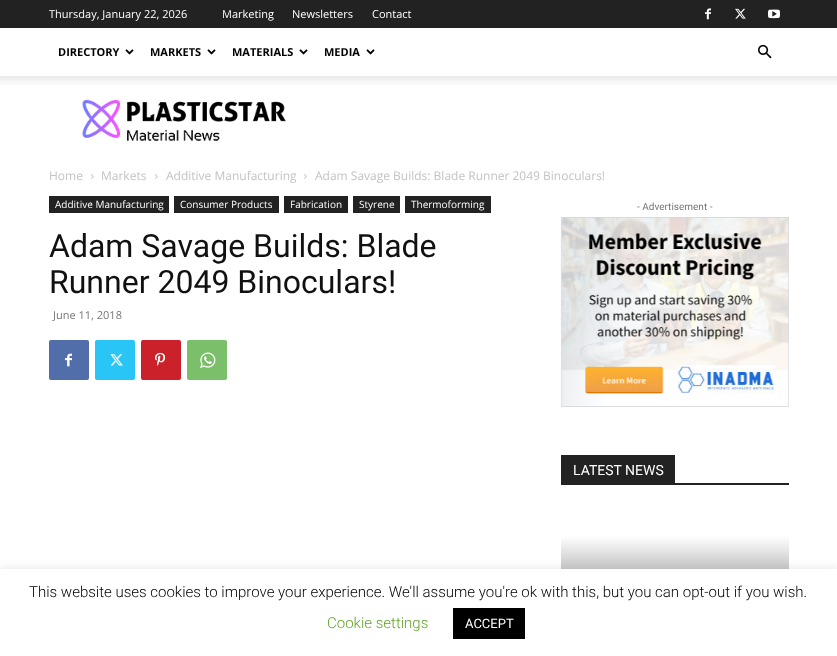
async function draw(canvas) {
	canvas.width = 837;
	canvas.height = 656;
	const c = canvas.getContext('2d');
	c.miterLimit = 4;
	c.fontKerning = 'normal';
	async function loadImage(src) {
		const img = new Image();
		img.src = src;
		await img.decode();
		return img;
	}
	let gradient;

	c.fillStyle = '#fff';
	c.fillRect(0, 0, 837, 656);
	c.fillStyle = '#222';
	c.fillRect(0, 0, 837, 28);
	c.font = '11px Open Sans';
	c.fillStyle = '#fff';
	for (const [text, x, y] of [
		['Thursday, January 22, 2026', 49, 18],
		['Marketing', 222, 18],
		['Newsletters', 292, 18],
		['Contact', 372, 18],
	]) {
		c.fillText(text, x, y);
	}
	c.drawImage(await loadImage('img1.png'), 705, 8, 6, 12);
	c.drawImage(await loadImage('img2.png'), 735, 8, 11, 11);
	c.drawImage(await loadImage('img3.png'), 768, 9, 12, 10);
	c.font = 'bold 11px Open Sans';
	c.fillStyle = '#000';
	c.fillText('DIRECTORY', 58, 56);
	c.drawImage(await loadImage('img4.png'), 125, 49, 9, 6);
	c.fillText('MARKETS', 150, 56);
	c.drawImage(await loadImage('img4.png'), 207, 49, 9, 6);
	c.fillText('MATERIALS', 232, 56);
	c.drawImage(await loadImage('img4.png'), 299, 49, 9, 6);
	c.fillText('MEDIA', 324, 56);
	c.drawImage(await loadImage('img4.png'), 366, 49, 9, 6);
	c.drawImage(await loadImage('img5.png'), 758, 44, 14, 15);
	c.drawImage(await loadImage('img6.png'), 0, 76, 837, 9);
	c.drawImage(await loadImage('img7.png'), 82, 99, 204, 42);
	c.font = '12px Open Sans';
	c.fillStyle = '#c3c3c3';
	c.fillText('Home', 49, 180);
	c.drawImage(await loadImage('img8.png'), 91, 174, 3, 5);
	c.fillText('Markets', 101, 180);
	c.drawImage(await loadImage('img8.png'), 155, 174, 3, 5);
	c.fillText('Additive Manufacturing', 166, 180);
	c.drawImage(await loadImage('img8.png'), 304, 174, 3, 5);
	c.fillText('Adam Savage Builds: Blade Runner 2049 Binoculars!', 315, 180);
	c.fillStyle = '#222';
	c.fillRect(49, 196, 120, 17);
	c.font = '10px Open Sans';
	c.fillStyle = '#fff';
	c.fillText('Additive Manufacturing', 55, 208);
	c.fillStyle = '#222';
	c.fillRect(174, 196, 105, 17);
	c.fillStyle = '#fff';
	c.fillText('Consumer Products', 180, 208);
	c.fillStyle = '#222';
	c.fillRect(284, 196, 64, 17);
	c.fillStyle = '#fff';
	c.fillText('Fabrication', 290, 208);
	c.fillStyle = '#222';
	c.fillRect(353, 196, 47, 17);
	c.fillStyle = '#fff';
	c.fillText('Styrene', 359, 208);
	c.fillStyle = '#222';
	c.fillRect(405, 196, 86, 17);
	c.fillStyle = '#fff';
	c.fillText('Thermoforming', 411, 208);
	c.font = '32px Roboto';
	c.fillStyle = '#111';
	c.fillText('Adam Savage Builds: Blade', 49, 257);
	c.fillText('Runner 2049 Binoculars!', 49, 293);
	c.font = '11px Open Sans';
	c.fillStyle = '#767676';
	c.fillText('June 11, 2018', 53, 319);
	c.fillStyle = '#516eab';
	c.beginPath();
	c.roundRect(49, 340, 40, 40, 2);
	c.fill();
	c.drawImage(await loadImage('img9.png'), 65, 353, 7, 14);
	c.fillStyle = '#29c5f6';
	c.beginPath();
	c.roundRect(95, 340, 40, 40, 2);
	c.fill();
	c.drawImage(await loadImage('img10.png'), 110, 354, 13, 12);
	c.fillStyle = '#ca212a';
	c.beginPath();
	c.roundRect(141, 340, 40, 40, 2);
	c.fill();
	c.drawImage(await loadImage('img11.png'), 155, 352, 11, 14);
	c.fillStyle = '#7bbf6a';
	c.beginPath();
	c.roundRect(187, 340, 40, 40, 2);
	c.fill();
	c.drawImage(await loadImage('img12.png'), 200, 352, 16, 16);
	c.font = '10px Roboto';
	c.fillStyle = '#767676';
	c.fillText('- Advertisement -', 637, 210);
	c.drawImage(await loadImage('img13.png'), 560, 217, 229, 190);
	c.fillStyle = '#222';
	c.fillRect(561, 483, 228, 2);
	c.fillRect(561, 455, 114, 28);
	c.font = '14px Roboto';
	c.fillStyle = '#fff';
	c.fillText('LATEST NEWS', 573, 475);
	gradient = c.createLinearGradient(675, 536, 675, 637);
	gradient.addColorStop(0, '#fff');
	gradient.addColorStop(1, '#4d4d4d');
	c.fillStyle = gradient;
	c.fillRect(561, 537, 228, 32);
	c.fillStyle = '#acabab4d';
	c.filter = 'blur(5px)';
	c.beginPath();
	c.rect(0, 568, 837, 87);
	c.fill();
	c.filter = 'none';
	c.fillStyle = '#fff';
	c.fillRect(0, 569, 837, 87);
	c.font = '300 15px Roboto';
	c.fillStyle = '#000';
	c.fillText('This website uses cookies to improve your experience. We\'ll assume you\'re ok with this, but you can opt-out if you wish.', 29, 597);
	c.fillStyle = '#62a329';
	c.fillText('Cookie settings', 327, 628);
	c.fillStyle = '#000';
	c.fillRect(453, 608, 72, 31);
	c.font = '13px Roboto';
	c.fillStyle = '#fff';
	c.fillText('ACCEPT', 465, 628);
}

draw(document.querySelector('canvas'));
